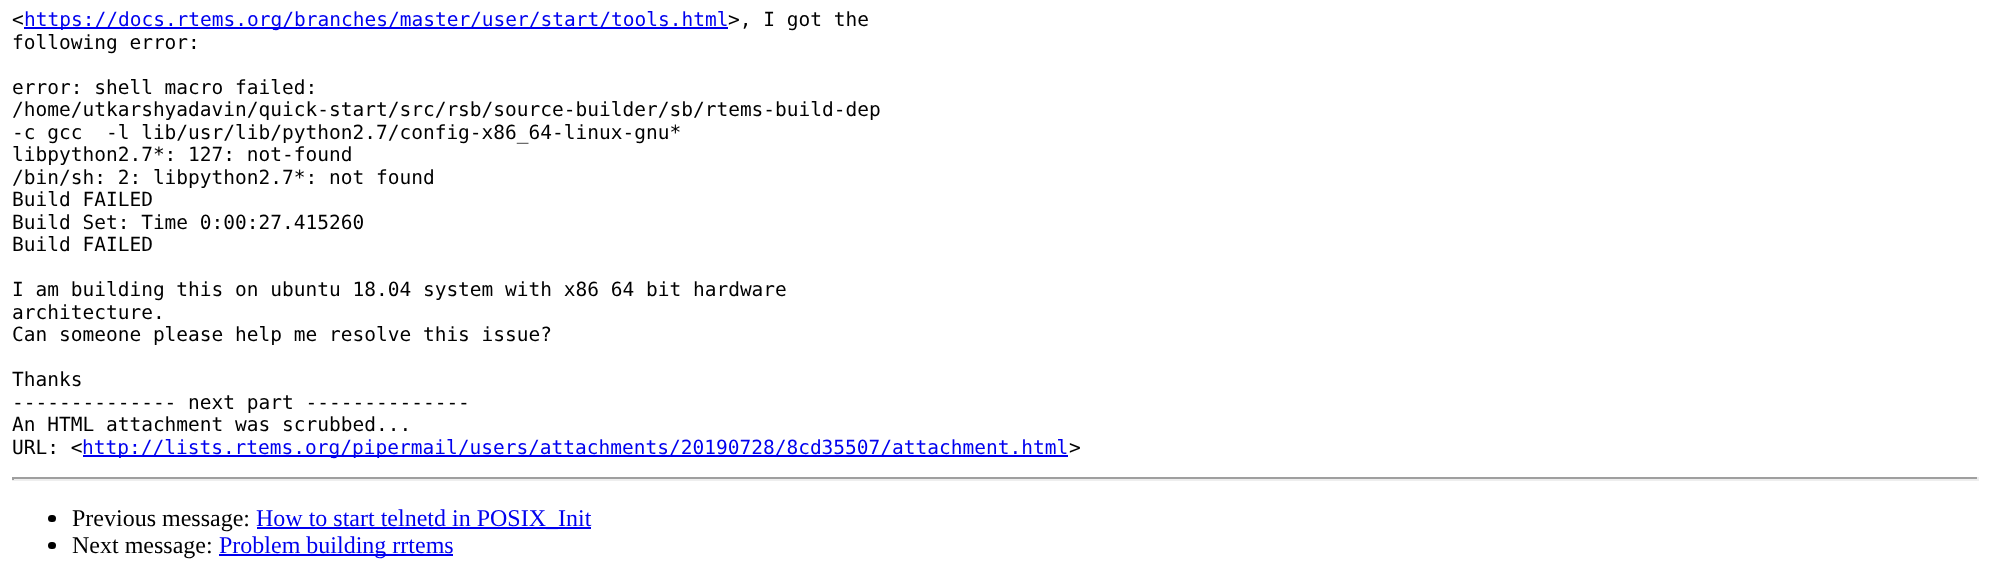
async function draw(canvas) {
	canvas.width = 1990;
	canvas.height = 563;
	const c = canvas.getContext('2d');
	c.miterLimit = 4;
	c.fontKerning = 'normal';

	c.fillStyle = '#fff';
	c.fillRect(0, 0, 1990, 563);
	c.font = '19.5px DejaVu Sans Mono';
	c.fillStyle = '#000';
	c.fillText('<', 12, 26);
	c.fillStyle = '#00e';
	c.fillRect(24, 27, 704, 2);
	c.fillText('https://docs.rtems.org/branches/master/user/start/tools.html', 24, 26);
	c.fillStyle = '#000';
	for (const [text, x, y] of [
		['>, I got the', 728, 26],
		['following error:', 12, 49],
		['error: shell macro failed:', 12, 94],
		['/home/utkarshyadavin/quick-start/src/rsb/source-builder/sb/rtems-build-dep', 12, 116],
		['-c gcc  -l lib/usr/lib/python2.7/config-x86_64-linux-gnu*', 12, 139],
		['libpython2.7*: 127: not-found', 12, 161],
		['/bin/sh: 2: libpython2.7*: not found', 12, 184],
		['Build FAILED', 12, 206],
		['Build Set: Time 0:00:27.415260', 12, 229],
		['Build FAILED', 12, 251],
		['I am building this on ubuntu 18.04 system with x86 64 bit hardware', 12, 296],
		['architecture.', 12, 319],
		['Can someone please help me resolve this issue?', 12, 341],
		['Thanks', 12, 386],
		['-------------- next part --------------', 12, 409],
		['An HTML attachment was scrubbed...', 12, 431],
		['URL: <', 12, 454],
	]) {
		c.fillText(text, x, y);
	}
	c.fillStyle = '#00e';
	c.fillRect(83, 455, 985, 2);
	c.fillText('http://lists.rtems.org/pipermail/users/attachments/20190728/8cd35507/attachment.html', 82, 454);
	c.fillStyle = '#000';
	c.fillText('>', 1069, 454);
	for (const [x, y, w, h, color] of [
		[12, 477, 1967, 2, '#9f9f9f'],
		[1977, 477, 2, 3, '#eee'],
		[12, 479, 1967, 2, '#eee'],
		[12, 477, 2, 3, '#9f9f9f'],
	]) {
		c.fillStyle = color;
		c.fillRect(x, y, w, h);
	}
	c.fillStyle = '#000';
	c.beginPath();
	c.roundRect(48, 515, 8, 7, 3.5);
	c.fill();
	c.font = '24px Liberation Serif';
	c.fillText('Previous message:', 72, 526);
	c.fillStyle = '#00e';
	c.fillRect(257, 527, 334, 2);
	c.fillText('How to start telnetd in POSIX_Init', 256, 526);
	c.fillStyle = '#000';
	c.beginPath();
	c.roundRect(48, 542, 8, 7, 3.5);
	c.fill();
	c.fillText('Next message:', 72, 553);
	c.fillStyle = '#00e';
	c.fillRect(219, 554, 234, 2);
	c.fillText('Problem building rrtems', 219, 553);
}

draw(document.querySelector('canvas'));
